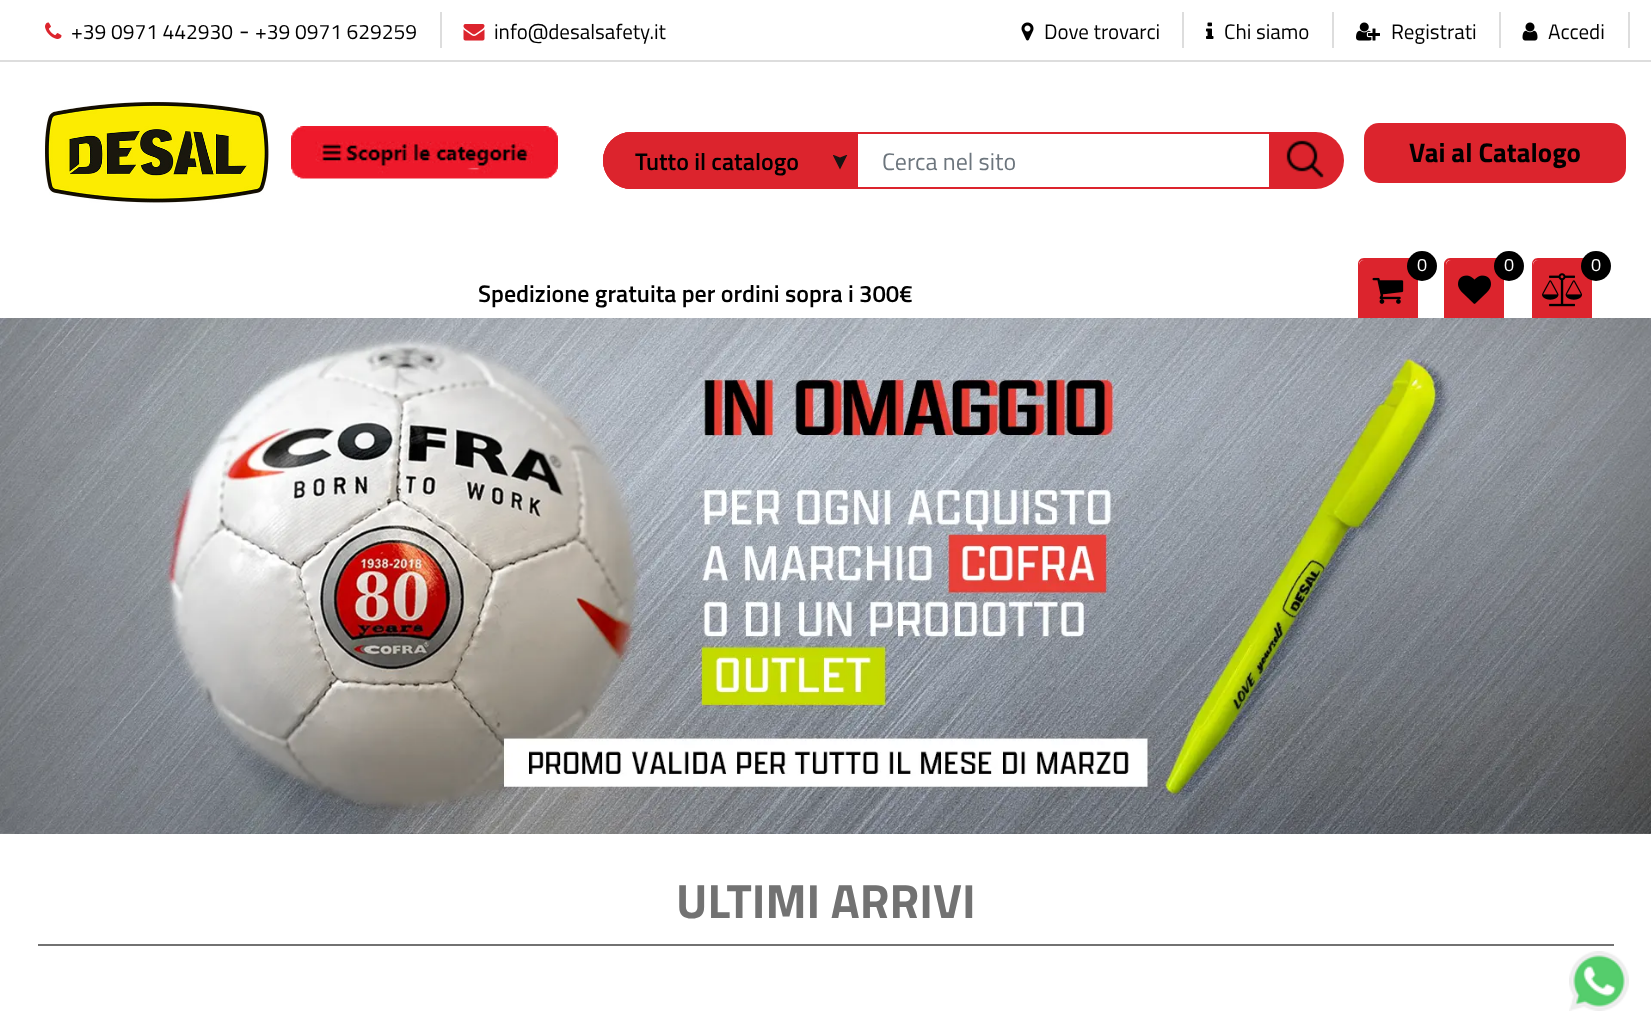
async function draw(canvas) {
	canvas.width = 1651;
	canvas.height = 1033;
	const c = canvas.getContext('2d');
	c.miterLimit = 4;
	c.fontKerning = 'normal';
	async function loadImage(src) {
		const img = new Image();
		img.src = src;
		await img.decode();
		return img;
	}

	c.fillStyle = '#fff';
	c.fillRect(0, 0, 1651, 1033);
	c.fillStyle = '#ddd';
	c.fillRect(0, 60, 1651, 2);
	c.fillRect(440, 12, 2, 36);
	c.drawImage(await loadImage('img1.png'), 45, 22, 17, 17);
	c.font = '21px Titillium Web';
	c.fillStyle = '#000';
	c.fillText('+39 0971 442930', 71, 39);
	c.font = '24px Titillium Web';
	c.fillText('-', 239, 39);
	c.font = '21px Titillium Web';
	c.fillText('+39 0971 629259', 255, 39);
	c.drawImage(await loadImage('img2.png'), 463, 24, 22, 17);
	c.fillText('info@desalsafety.it', 494, 39);
	c.fillStyle = '#ddd';
	c.fillRect(1182, 12, 2, 36);
	c.drawImage(await loadImage('img3.png'), 1021, 22, 13, 19);
	c.fillStyle = '#000';
	c.fillText('Dove trovarci', 1044, 39);
	c.fillStyle = '#ddd';
	c.fillRect(1332, 12, 2, 36);
	c.drawImage(await loadImage('img4.png'), 1206, 22, 8, 17);
	c.fillStyle = '#000';
	c.fillText('Chi siamo', 1224, 39);
	c.fillStyle = '#ddd';
	c.fillRect(1499, 12, 2, 36);
	c.drawImage(await loadImage('img5.png'), 1356, 22, 24, 19);
	c.fillStyle = '#000';
	c.fillText('Registrati', 1391, 39);
	c.fillStyle = '#ddd';
	c.fillRect(1628, 12, 2, 36);
	c.drawImage(await loadImage('img6.png'), 1522, 22, 16, 19);
	c.fillStyle = '#000';
	c.fillText('Accedi', 1548, 39);
	c.drawImage(await loadImage('img7.png'), 45, 102, 224, 101);
	c.drawImage(await loadImage('img8.png'), 291, 126, 267, 53);
	c.beginPath();
	c.roundRect(604, 133, 712, 55, [27.5, 1, 1, 27.5]);
	c.strokeStyle = '#dc242d';
	c.lineWidth = 2;
	c.stroke();
	c.fillStyle = '#dc242d';
	c.beginPath();
	c.roundRect(603, 132, 255, 57, [28.5, 2, 2, 28.5]);
	c.fill();
	c.save();
	c.beginPath();
	c.rect(833, 155, 15, 15);
	c.clip();
	c.fillStyle = '#161413';
	c.beginPath();
	c.moveTo(847.5, 154.5);
	c.lineTo(840, 169.5);
	c.lineTo(832.5, 154.5);
	c.lineTo(840, 157.5);
	c.closePath();
	c.fill('evenodd');
	c.restore();
	c.beginPath();
	c.roundRect(604, 133, 253, 55, [27.5, 1, 1, 27.5]);
	c.stroke();
	c.save();
	c.beginPath();
	c.rect(635, 143, 204, 36);
	c.clip();
	c.font = '600 24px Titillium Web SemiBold';
	c.fillStyle = '#000';
	c.fillText('Tutto il catalogo', 635, 170);
	c.restore();
	c.font = '24px Titillium Web';
	c.fillStyle = '#6c757d';
	c.fillText('Cerca nel sito', 882, 170);
	c.fillStyle = '#dc242d';
	c.beginPath();
	c.roundRect(1269, 132, 75, 57, [2, 28.5, 28.5, 2]);
	c.fill();
	c.drawImage(await loadImage('img9.png'), 1286, 140, 38, 38);
	c.beginPath();
	c.roundRect(1364, 123, 262, 60, 15);
	c.fill();
	c.font = 'bold 27px Titillium Web';
	c.fillStyle = '#000';
	c.fillText('Vai al Catalogo', 1409, 162);
	c.fillStyle = '#dc242d';
	c.beginPath();
	c.roundRect(1359, 260, 57, 58, [5, 5, 0, 0]);
	c.fill();
	c.beginPath();
	c.moveTo(1364, 258);
	c.lineTo(1412, 258);
	c.bezierCurveTo(1415, 258, 1418, 261, 1418, 264);
	c.lineTo(1418, 318);
	c.lineTo(1358, 318);
	c.lineTo(1358, 264);
	c.bezierCurveTo(1358, 261, 1360, 258, 1364, 258);
	c.closePath();
	c.moveTo(1364, 260);
	c.lineTo(1412, 260);
	c.bezierCurveTo(1414, 260, 1416, 262, 1416, 264);
	c.lineTo(1416, 318);
	c.lineTo(1359, 318);
	c.lineTo(1359, 264);
	c.bezierCurveTo(1359, 262, 1361, 260, 1364, 260);
	c.closePath();
	c.fill('evenodd');
	c.drawImage(await loadImage('img10.png'), 1372, 277, 32, 27);
	c.fillStyle = '#000';
	c.beginPath();
	c.arc(1422, 266, 15, 0, 2 * Math.PI);
	c.fill();
	c.font = '18px Titillium Web';
	c.fillStyle = '#fff';
	c.fillText('0', 1417, 271);
	c.fillStyle = '#dc242d';
	c.beginPath();
	c.roundRect(1446, 260, 57, 58, [5, 5, 0, 0]);
	c.fill();
	c.beginPath();
	c.moveTo(1450, 258);
	c.lineTo(1498, 258);
	c.bezierCurveTo(1502, 258, 1504, 261, 1504, 264);
	c.lineTo(1504, 318);
	c.lineTo(1444, 318);
	c.lineTo(1444, 264);
	c.bezierCurveTo(1444, 261, 1447, 258, 1450, 258);
	c.closePath();
	c.moveTo(1450, 260);
	c.lineTo(1498, 260);
	c.bezierCurveTo(1501, 260, 1503, 262, 1503, 264);
	c.lineTo(1503, 318);
	c.lineTo(1446, 318);
	c.lineTo(1446, 264);
	c.bezierCurveTo(1446, 262, 1448, 260, 1450, 260);
	c.closePath();
	c.fill('evenodd');
	c.drawImage(await loadImage('img11.png'), 1458, 275, 33, 29);
	c.fillStyle = '#000';
	c.beginPath();
	c.arc(1509, 266, 15, 0, 2 * Math.PI);
	c.fill();
	c.fillStyle = '#fff';
	c.fillText('0', 1504, 271);
	c.fillStyle = '#dc242d';
	c.beginPath();
	c.roundRect(1533, 260, 57, 58, [5, 5, 0, 0]);
	c.fill();
	c.beginPath();
	c.moveTo(1538, 258);
	c.lineTo(1586, 258);
	c.bezierCurveTo(1589, 258, 1592, 261, 1592, 264);
	c.lineTo(1592, 318);
	c.lineTo(1532, 318);
	c.lineTo(1532, 264);
	c.bezierCurveTo(1532, 261, 1534, 258, 1538, 258);
	c.closePath();
	c.moveTo(1538, 260);
	c.lineTo(1586, 260);
	c.bezierCurveTo(1588, 260, 1590, 262, 1590, 264);
	c.lineTo(1590, 318);
	c.lineTo(1533, 318);
	c.lineTo(1533, 264);
	c.bezierCurveTo(1533, 262, 1535, 260, 1538, 260);
	c.closePath();
	c.fill('evenodd');
	c.drawImage(await loadImage('img12.png'), 1542, 273, 40, 34);
	c.fillStyle = '#000';
	c.beginPath();
	c.arc(1596, 266, 15, 0, 2 * Math.PI);
	c.fill();
	c.fillStyle = '#fff';
	c.fillText('0', 1591, 271);
	c.font = '600 24px Titillium Web SemiBold';
	c.fillStyle = '#000';
	c.fillText('Spedizione gratuita per ordini sopra i 300€', 478, 302);
	c.drawImage(await loadImage('img13.png'), 0, 318, 1651, 516);
	c.fillStyle = '#727272';
	c.fillRect(38, 944, 1576, 2);
	c.font = 'bold 48px Titillium Web';
	c.fillText('ULTIMI ARRIVI', 676, 918);
	c.drawImage(await loadImage('img14.png'), 1569, 951, 60, 60);
}

draw(document.querySelector('canvas'));
